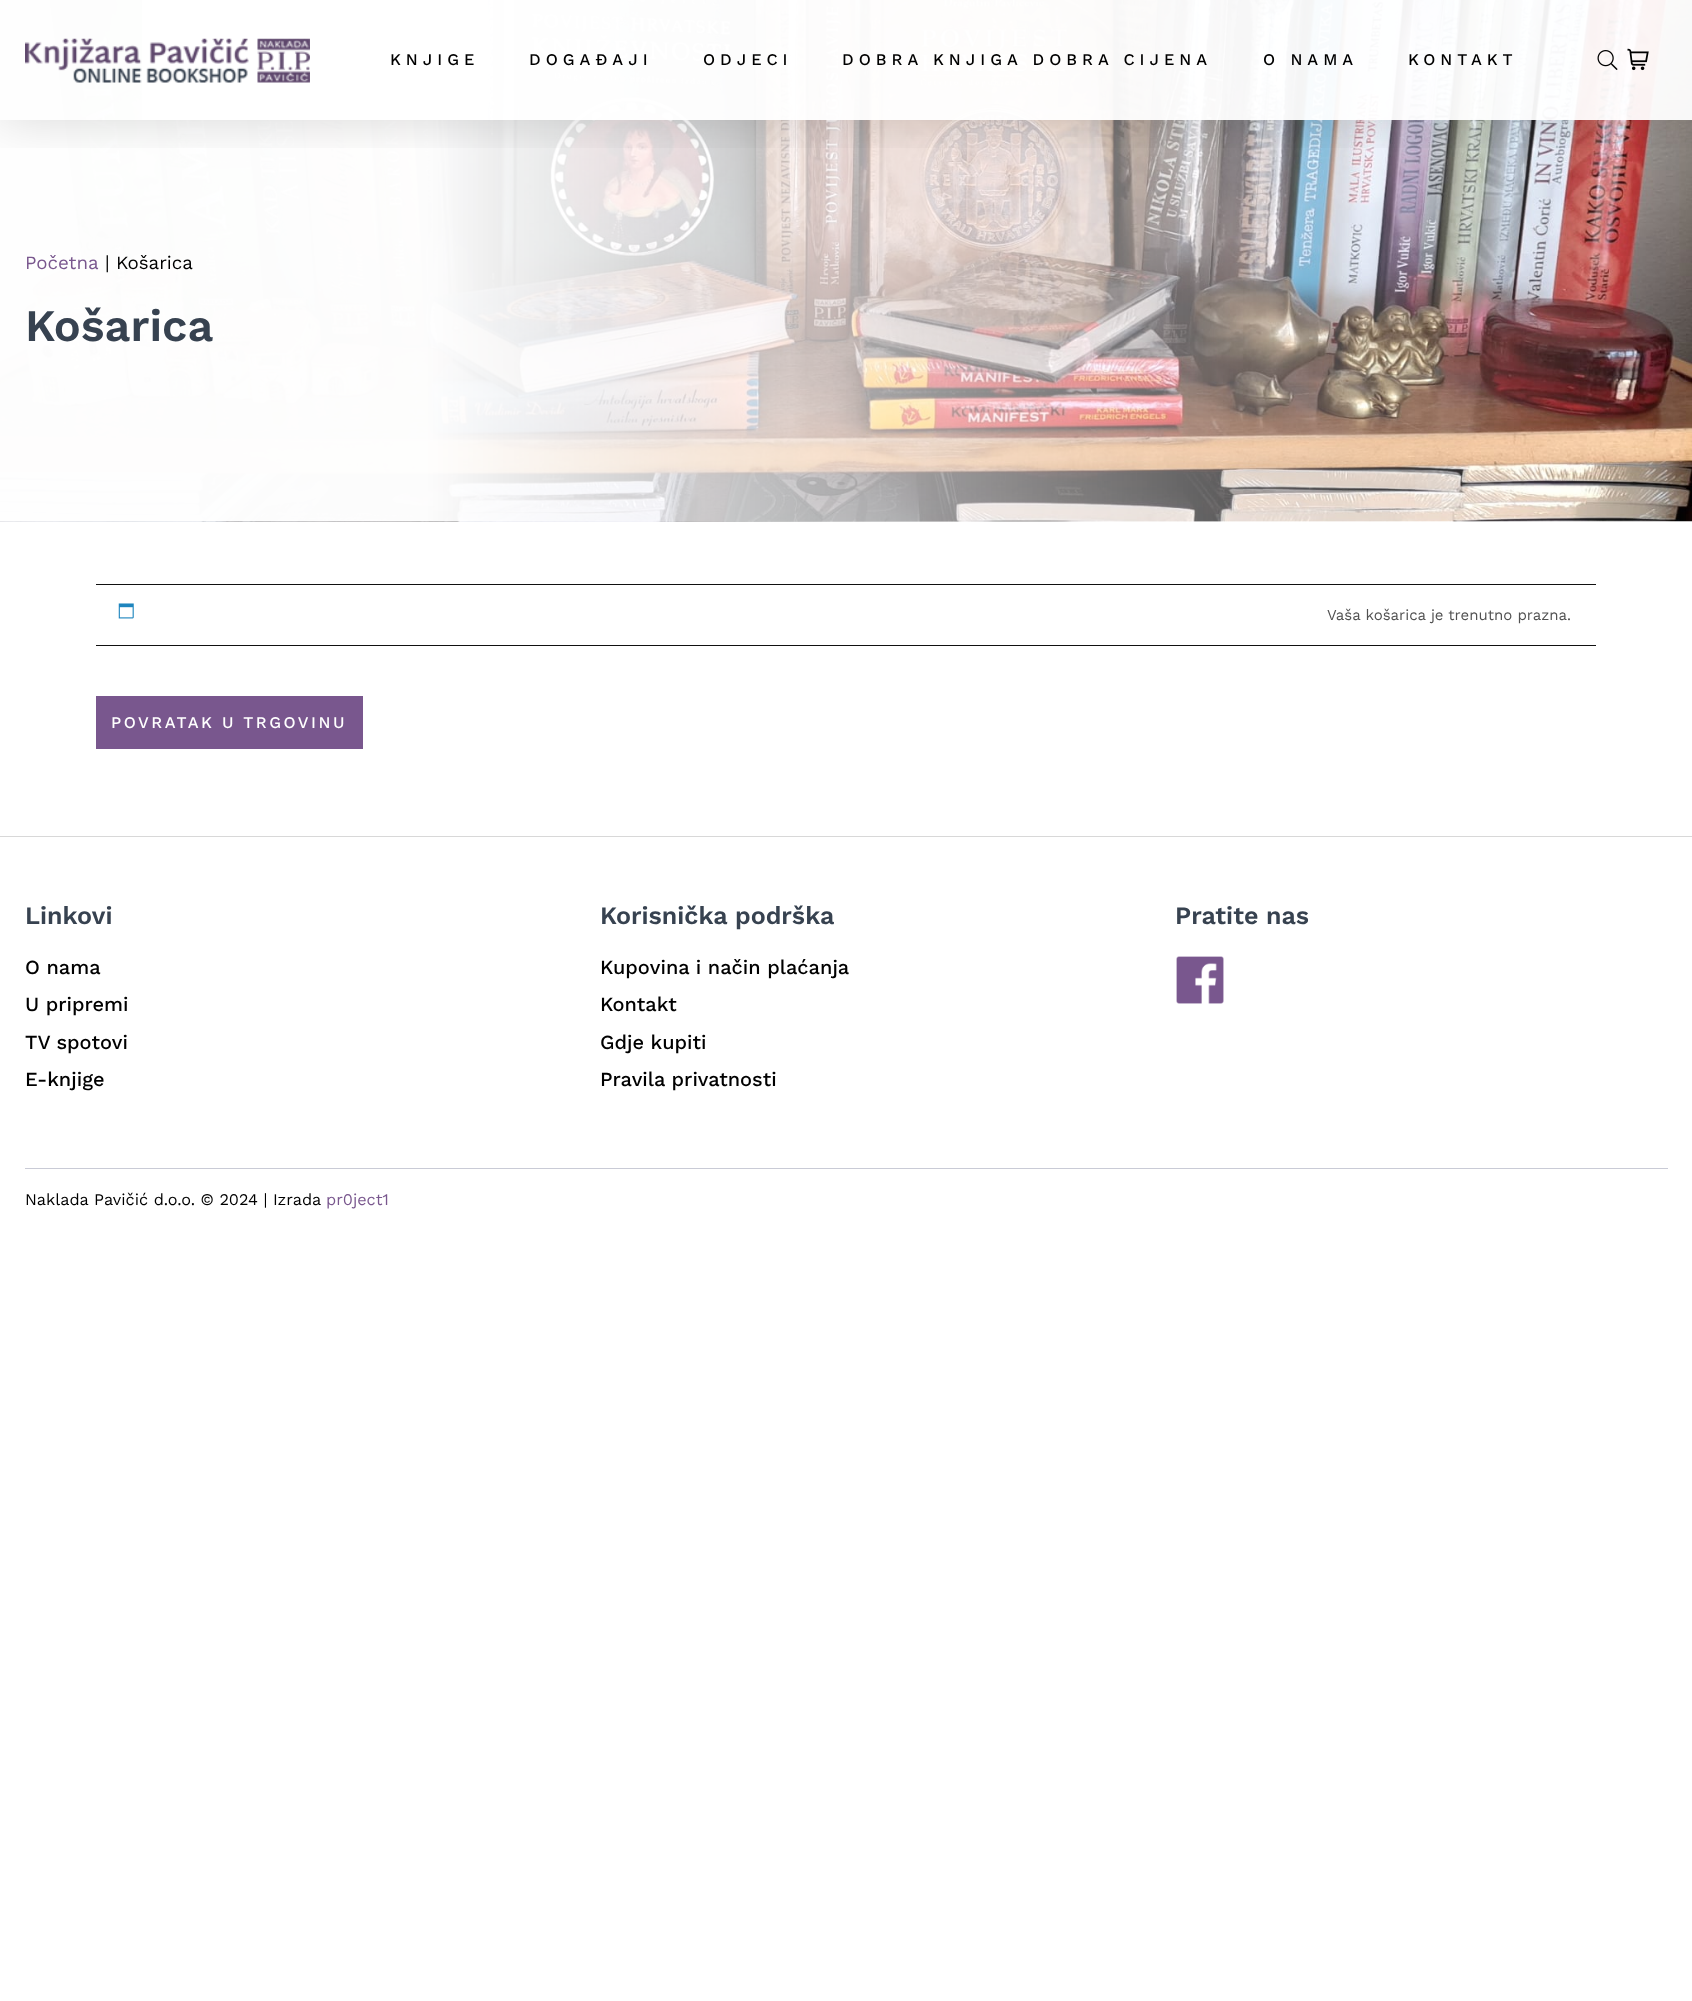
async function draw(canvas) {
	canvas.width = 1692;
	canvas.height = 2001;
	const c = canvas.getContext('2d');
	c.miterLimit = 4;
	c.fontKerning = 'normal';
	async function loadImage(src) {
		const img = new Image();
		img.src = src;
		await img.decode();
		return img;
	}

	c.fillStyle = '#fff';
	c.fillRect(0, 0, 1692, 2001);
	c.drawImage(await loadImage('img4.png'), 0, 0, 1692, 522);
	c.save();
	c.beginPath();
	c.rect(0, 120, 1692, 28);
	c.clip();
	c.fillStyle = '#00000026';
	c.filter = 'blur(25px)';
	c.beginPath();
	c.rect(0, 0, 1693, 120);
	c.fill();
	c.filter = 'none';
	c.restore();
	c.fillStyle = '#fffffff0';
	c.fillRect(142, 0, 1550, 120);
	c.drawImage(await loadImage('img1.png'), 25, 38, 285, 45);
	c.letterSpacing = '5px';
	c.font = '500 16.25px Work Sans';
	c.fillStyle = '#000';
	for (const [text, x, y] of [
		['KNJIGE', 390, 65],
		['DOGAĐAJI', 529, 65],
		['ODJECI', 703, 65],
		['DOBRA KNJIGA DOBRA CIJENA', 842, 65],
		['O NAMA', 1263, 65],
		['KONTAKT', 1408, 65],
	]) {
		c.fillText(text, x, y);
	}
	c.drawImage(await loadImage('img2.png'), 1597, 50, 21, 20);
	c.drawImage(await loadImage('img3.png'), 1627, 48, 22, 23);
	c.letterSpacing = '0px';
	c.font = '18.75px Work Sans';
	c.fillStyle = '#79578e';
	c.fillText('Početna', 25, 269);
	c.fillStyle = '#000';
	c.fillText('| Košarica', 105, 269);
	c.font = '600 45px Work Sans';
	c.fillStyle = '#374250';
	c.fillText('Košarica', 25, 341);
	c.fillStyle = '#111';
	c.fillRect(96, 584, 1500, 1);
	c.fillRect(96, 645, 1500, 1);
	c.drawImage(await loadImage('img5.png'), 118, 603, 16, 16);
	c.font = '15px Work Sans';
	c.fillStyle = '#515151';
	c.fillText('Vaša košarica je trenutno prazna.', 1327, 620);
	c.fillStyle = '#79578e';
	c.fillRect(96, 696, 267, 53);
	c.letterSpacing = '2.5px';
	c.font = '500 16.25px Work Sans';
	c.fillStyle = '#fff';
	c.fillText('POVRATAK U TRGOVINU', 111, 728);
	c.fillStyle = '#d8d8d8';
	c.fillRect(0, 836, 1692, 1);
	c.letterSpacing = '0px';
	c.font = '600 25px Work Sans';
	c.fillStyle = '#374250';
	c.fillText('Linkovi', 25, 924);
	c.font = '500 20px Work Sans';
	c.fillStyle = '#000';
	for (const [text, x, y] of [
		['O nama', 25, 974],
		['U pripremi', 25, 1011],
		['TV spotovi', 25, 1049],
		['E-knjige', 25, 1086],
	]) {
		c.fillText(text, x, y);
	}
	c.font = '600 25px Work Sans';
	c.fillStyle = '#374250';
	c.fillText('Korisnička podrška', 600, 924);
	c.font = '500 20px Work Sans';
	c.fillStyle = '#000';
	for (const [text, x, y] of [
		['Kupovina i način plaćanja', 600, 974],
		['Kontakt', 600, 1011],
		['Gdje kupiti', 600, 1049],
		['Pravila privatnosti', 600, 1086],
	]) {
		c.fillText(text, x, y);
	}
	c.font = '600 25px Work Sans';
	c.fillStyle = '#374250';
	c.fillText('Pratite nas', 1175, 924);
	c.drawImage(await loadImage('img6.png'), 1176, 956, 48, 48);
	c.fillStyle = '#c9cbd6';
	c.fillRect(25, 1168, 1643, 1);
	c.font = '16.25px Work Sans';
	c.fillStyle = '#000';
	c.fillText('Naklada Pavičić d.o.o. © 2024 | Izrada', 25, 1205);
	c.fillStyle = '#79578e';
	c.fillText('pr0ject1', 326, 1205);
}

draw(document.querySelector('canvas'));
